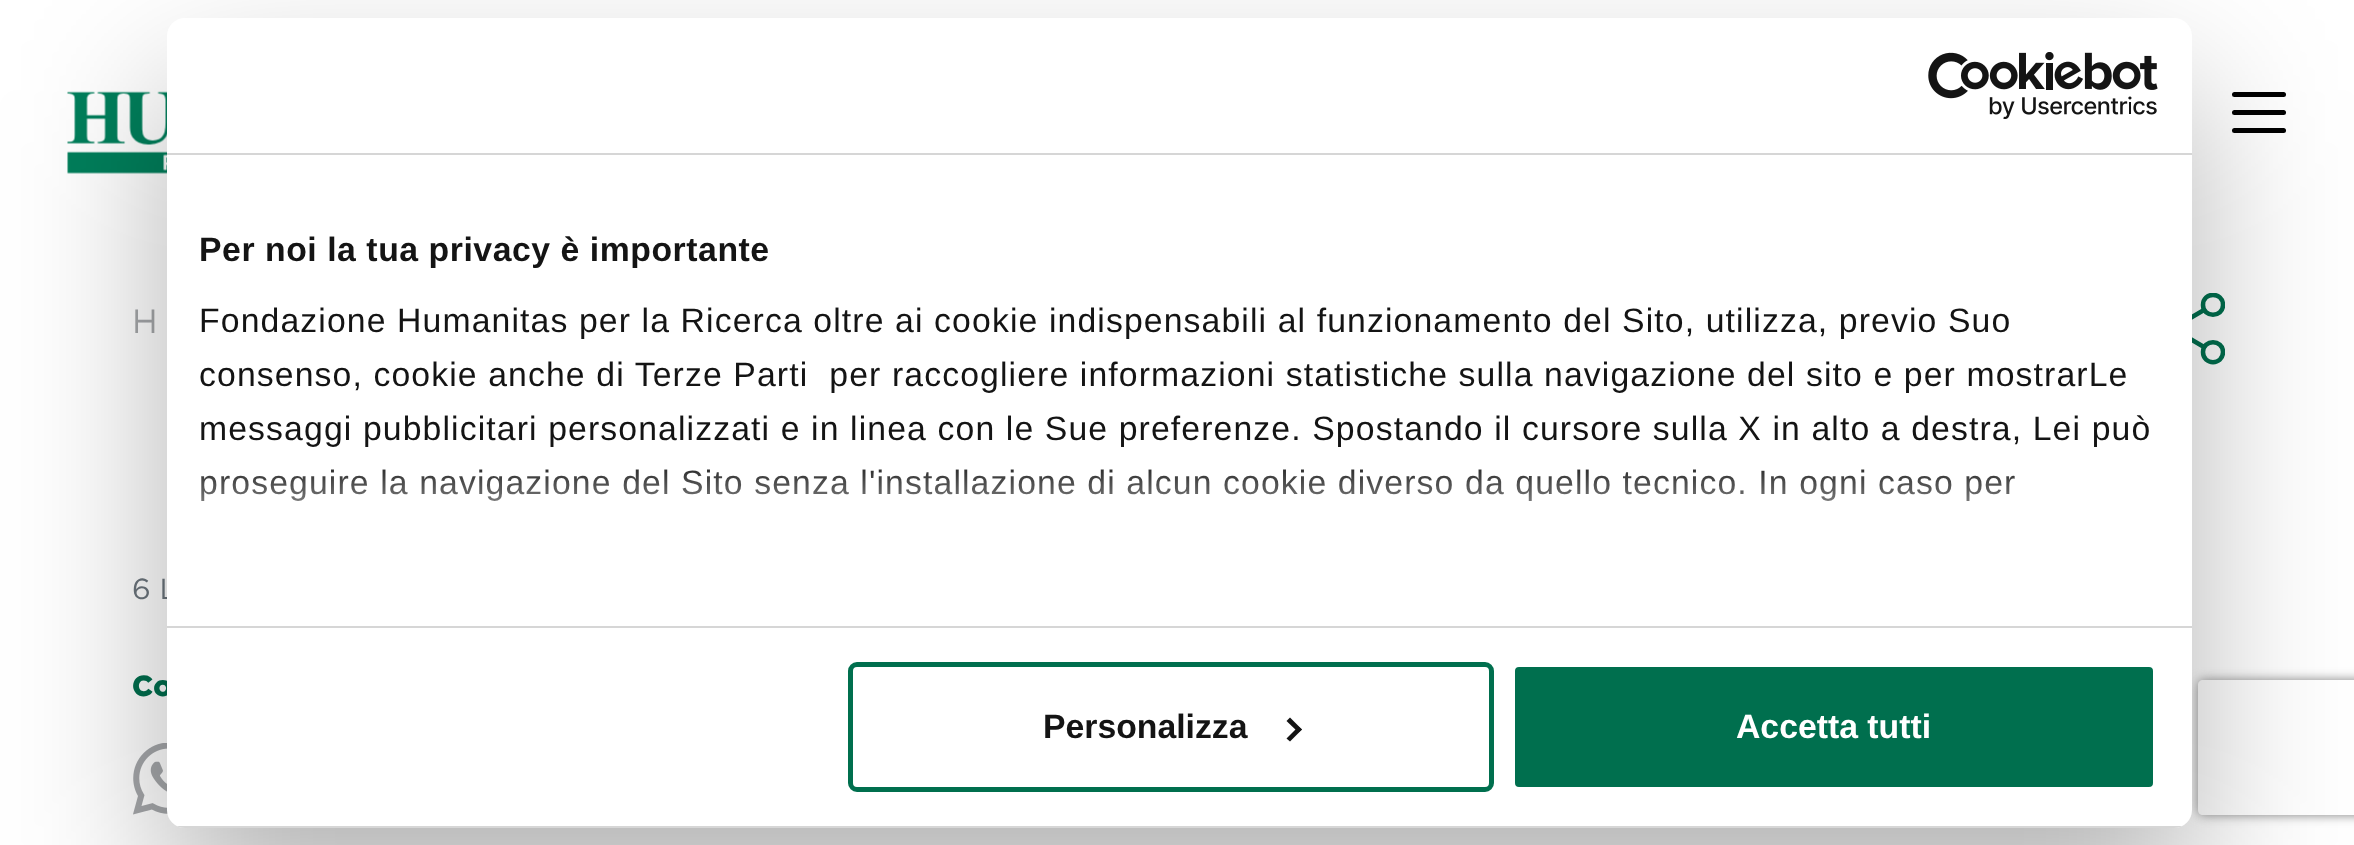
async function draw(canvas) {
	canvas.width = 2354;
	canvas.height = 845;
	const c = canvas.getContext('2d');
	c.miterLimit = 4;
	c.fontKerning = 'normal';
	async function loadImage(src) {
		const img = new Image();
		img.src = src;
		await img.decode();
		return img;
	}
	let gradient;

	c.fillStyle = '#fff';
	c.fillRect(0, 0, 2354, 845);
	c.drawImage(await loadImage('img1.png'), 67, 91, 100, 83);
	c.fillStyle = '#000';
	c.beginPath();
	c.roundRect(2232, 110, 54, 5, 2.5);
	c.fill();
	c.beginPath();
	c.roundRect(2232, 92, 54, 5, 2.5);
	c.fill();
	c.beginPath();
	c.roundRect(2232, 128, 54, 5, 2.5);
	c.fill();
	c.font = '33.75px Gotham';
	c.fillStyle = '#a6a8ab';
	c.fillText('H', 132, 333);
	c.save();
	c.beginPath();
	c.rect(2160, 293, 65, 72);
	c.clip();
	c.beginPath();
	c.moveTo(2223, 305);
	c.bezierCurveTo(2223, 318, 2203, 318, 2203, 305);
	c.bezierCurveTo(2203, 291.5, 2223, 291.5, 2223, 305);
	c.closePath();
	c.moveTo(2182.5, 328.5);
	c.bezierCurveTo(2182.5, 342, 2162, 342, 2162, 328.5);
	c.bezierCurveTo(2162, 315, 2182.5, 315, 2182.5, 328.5);
	c.closePath();
	c.moveTo(2223, 352);
	c.bezierCurveTo(2223, 365.5, 2203, 365.5, 2203, 352);
	c.bezierCurveTo(2203, 339, 2223, 339, 2223, 352);
	c.closePath();
	c.strokeStyle = '#006f4e';
	c.lineWidth = 4.5;
	c.lineJoin = 'round';
	c.stroke();
	c.restore();
	c.beginPath();
	c.moveTo(2181, 333.5);
	c.lineTo(2204, 347);
	c.moveTo(2204, 310);
	c.lineTo(2181, 323.5);
	c.strokeStyle = '#006f4e';
	c.lineWidth = 4.5;
	c.lineCap = 'round';
	c.lineJoin = 'round';
	c.stroke();
	c.font = '29px Gotham';
	c.fillStyle = '#6c757d';
	c.fillText('6 L', 132, 599);
	c.font = '900 29px Gotham';
	c.fillStyle = '#006f4e';
	c.fillText('Co', 132, 696);
	c.drawImage(await loadImage('img2.png'), 133, 743, 35, 72);
	c.fillStyle = '#0000004d';
	c.filter = 'blur(76.5px)';
	c.beginPath();
	c.roundRect(167, 90, 2025, 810, 18);
	c.fill();
	c.filter = 'none';
	c.save();
	c.beginPath();
	c.moveTo(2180, 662);
	c.lineTo(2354, 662);
	c.lineTo(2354, 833);
	c.lineTo(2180, 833);
	c.closePath();
	c.moveTo(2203, 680);
	c.lineTo(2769, 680);
	c.bezierCurveTo(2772, 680, 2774, 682, 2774, 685);
	c.lineTo(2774, 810);
	c.bezierCurveTo(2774, 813, 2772, 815, 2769, 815);
	c.lineTo(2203, 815);
	c.bezierCurveTo(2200, 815, 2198, 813, 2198, 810);
	c.lineTo(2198, 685);
	c.bezierCurveTo(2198, 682, 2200, 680, 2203, 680);
	c.closePath();
	c.clip('evenodd');
	c.fillStyle = '#808080';
	c.filter = 'blur(5.5px)';
	c.beginPath();
	c.roundRect(2198, 680, 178, 135, 5);
	c.fill();
	c.filter = 'none';
	c.restore();
	c.fillStyle = '#fff';
	c.beginPath();
	c.roundRect(167, 18, 2025, 810, 18);
	c.fill();
	c.fillStyle = '#d6d6d6';
	c.fillRect(167, 153, 2025, 2);
	c.drawImage(await loadImage('img3.png'), 1928, 52, 230, 67);
	c.fillRect(167, 626, 2025, 2);
	c.letterSpacing = '0.55px';
	c.font = 'bold 33.75px Liberation Sans';
	c.fillStyle = '#141414';
	c.fillText('Per noi la tua privacy è importante', 199, 261);
	c.letterSpacing = '1.12px';
	c.font = '33.75px Liberation Sans';
	for (const [text, x, y] of [
		['Fondazione Humanitas per la Ricerca oltre ai cookie indispensabili al funzionamento del Sito, utilizza, previo Suo', 199, 332],
		['consenso, cookie anche di Terze Parti  per raccogliere informazioni statistiche sulla navigazione del sito e per mostrarLe', 199, 386],
		['messaggi pubblicitari personalizzati e in linea con le Sue preferenze. Spostando il cursore sulla X in alto a destra, Lei può', 199, 440],
		['proseguire la navigazione del Sito senza l\'installazione di alcun cookie diverso da quello tecnico. In ogni caso per', 199, 494],
	]) {
		c.fillText(text, x, y);
	}
	gradient = c.createLinearGradient(1164, 626, 1164, 457);
	gradient.addColorStop(0, '#fff');
	gradient.addColorStop(0.5, '#ffffffcc');
	gradient.addColorStop(1, '#ffffff00');
	c.fillStyle = gradient;
	c.fillRect(201, 469, 1815, 32);
	c.save();
	c.beginPath();
	c.roundRect(167, 18, 2025, 810, 18);
	c.clip();
	c.fillStyle = '#d6d6d6';
	c.fillRect(177, 826, 2005, 2);
	c.restore();
	c.beginPath();
	c.roundRect(850.5, 664.5, 641, 125, 6.5);
	c.lineWidth = 5;
	c.lineJoin = 'miter';
	c.stroke();
	c.letterSpacing = '0px';
	c.font = 'bold 33.75px Liberation Sans';
	c.fillStyle = '#141414';
	c.fillText('Personalizza', 1043, 738);
	c.beginPath();
	c.moveTo(1290, 717.5);
	c.lineTo(1302, 729.5);
	c.lineTo(1298.5, 732.5);
	c.lineTo(1286.5, 721);
	c.closePath();
	c.fill();
	c.beginPath();
	c.moveTo(1298.5, 726.5);
	c.lineTo(1302, 729.5);
	c.lineTo(1290, 741.5);
	c.lineTo(1286.5, 738.5);
	c.closePath();
	c.fill();
	c.fillStyle = '#006f4e';
	c.beginPath();
	c.roundRect(1512.5, 664.5, 643, 125, 6.5);
	c.fill();
	c.strokeStyle = '#fff';
	c.stroke();
	c.fillStyle = '#fff';
	c.fillText('Accetta tutti', 1736, 738);
}

draw(document.querySelector('canvas'));
